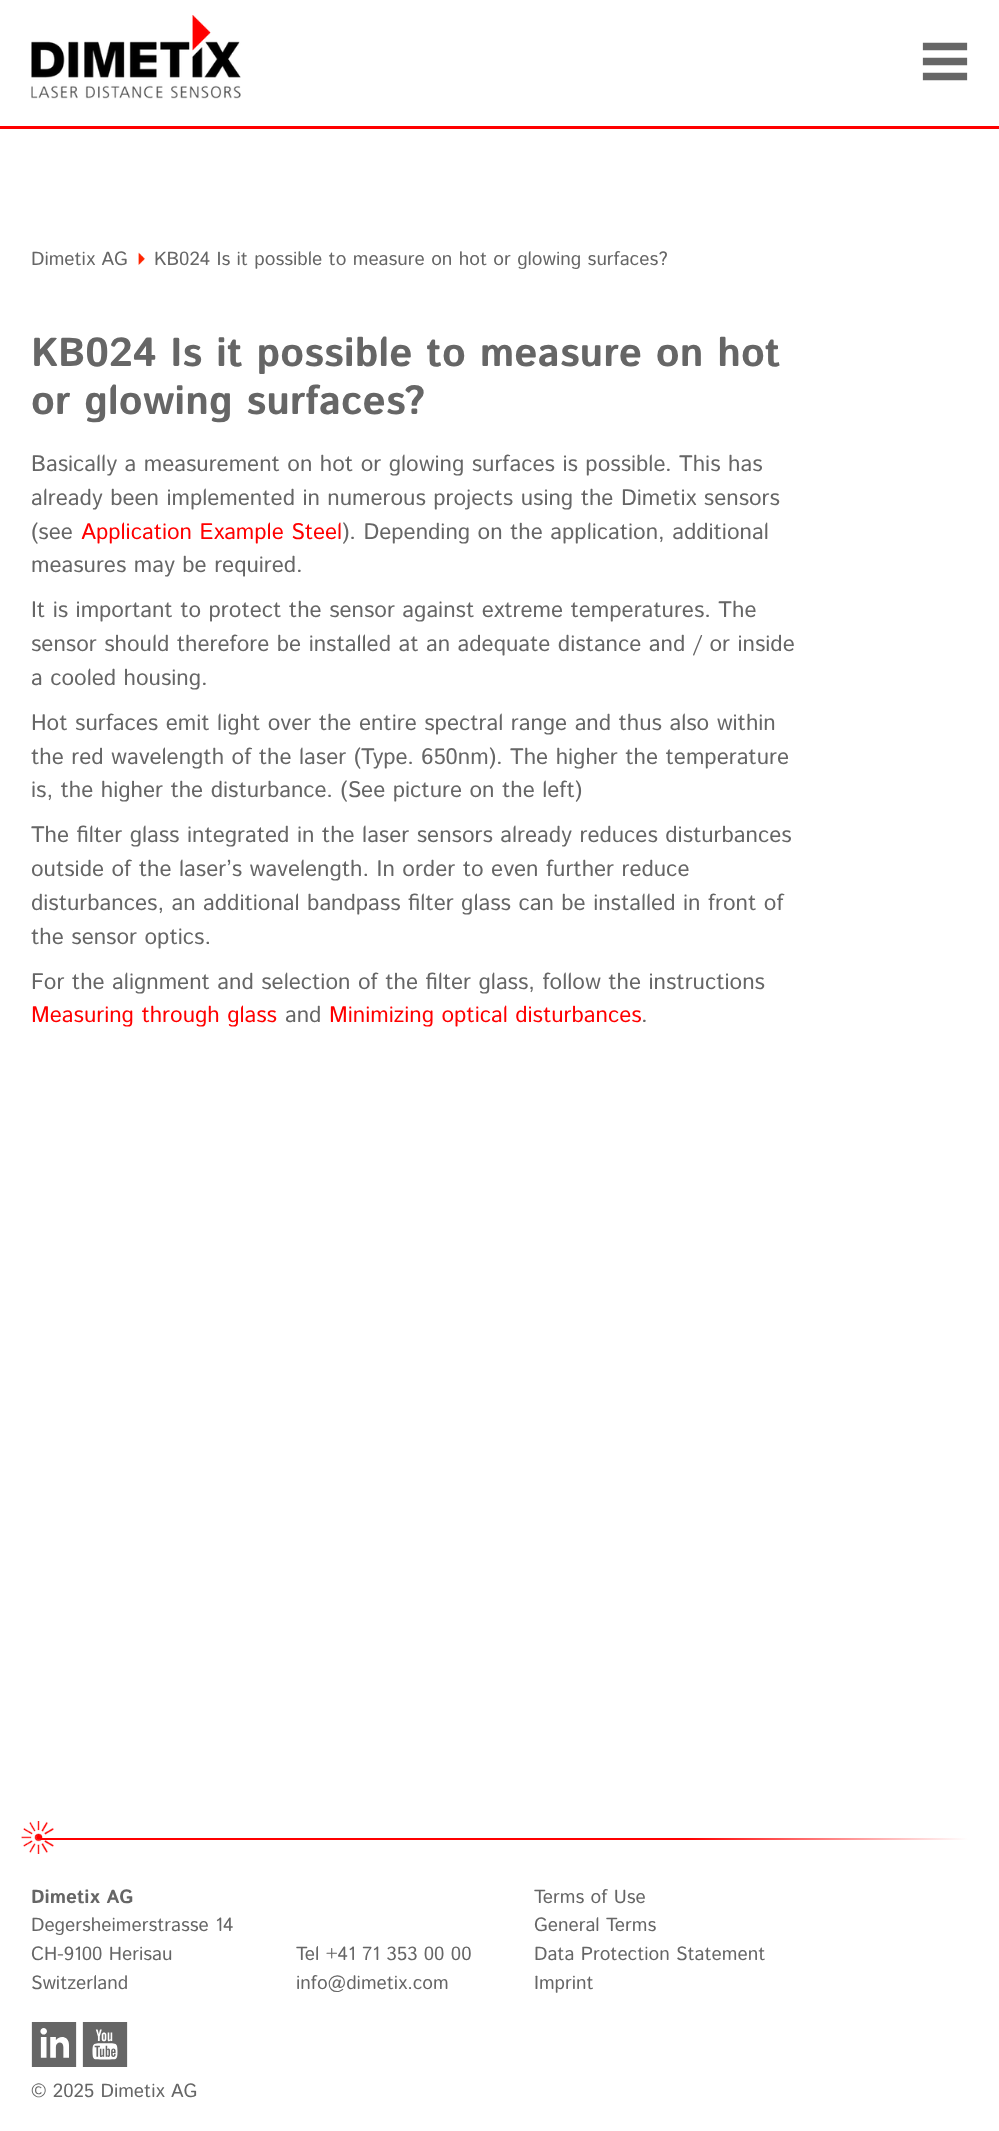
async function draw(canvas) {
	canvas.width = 999;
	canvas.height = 2131;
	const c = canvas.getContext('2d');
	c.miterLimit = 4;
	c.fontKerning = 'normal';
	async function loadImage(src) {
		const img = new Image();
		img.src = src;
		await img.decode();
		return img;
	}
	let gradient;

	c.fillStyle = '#fff';
	c.fillRect(0, 0, 999, 2131);
	c.fillStyle = '#f00';
	c.fillRect(0, 126, 999, 3);
	c.drawImage(await loadImage('img1.png'), 31, 15, 210, 84);
	c.drawImage(await loadImage('img2.png'), 922, 42, 46, 39);
	c.font = '19.1px Istok Web';
	c.fillStyle = '#666';
	c.fillText('Dimetix AG', 31, 265);
	c.drawImage(await loadImage('img3.png'), 138, 252, 7, 13);
	c.fillText('KB024 Is it possible to measure on hot or glowing surfaces?', 154, 265);
	c.font = 'bold 40.5px Istok Web';
	c.fillText('KB024 Is it possible to measure on hot', 31, 366);
	c.fillText('or glowing surfaces?', 31, 414);
	c.font = '22.5px Istok Web';
	for (const [text, x, y] of [
		['Basically a measurement on hot or glowing surfaces is possible. This has', 31, 471],
		['already been implemented in numerous projects using the Dimetix sensors', 31, 505],
		['(see', 31, 539],
	]) {
		c.fillText(text, x, y);
	}
	c.fillStyle = '#f00';
	c.fillText('Application Example Steel', 81, 539);
	c.fillStyle = '#666';
	for (const [text, x, y] of [
		['). Depending on the application, additional', 342, 539],
		['measures may be required.', 31, 572],
		['It is important to protect the sensor against extreme temperatures. The', 31, 617],
		['sensor should therefore be installed at an adequate distance and / or inside', 31, 651],
		['a cooled housing.', 31, 685],
		['Hot surfaces emit light over the entire spectral range and thus also within', 31, 730],
		['the red wavelength of the laser (Type. 650nm). The higher the temperature', 31, 764],
		['is, the higher the disturbance. (See picture on the left)', 31, 797],
		['The filter glass integrated in the laser sensors already reduces disturbances', 31, 842],
		['outside of the laser’s wavelength. In order to even further reduce', 31, 876],
		['disturbances, an additional bandpass filter glass can be installed in front of', 31, 910],
		['the sensor optics.', 31, 944],
		['For the alignment and selection of the filter glass, follow the instructions', 31, 989],
	]) {
		c.fillText(text, x, y);
	}
	c.fillStyle = '#f00';
	c.fillText('Measuring through glass', 31, 1022);
	c.fillStyle = '#666';
	c.fillText('and', 285, 1022);
	c.fillStyle = '#f00';
	c.fillText('Minimizing optical disturbances', 329, 1022);
	c.fillStyle = '#666';
	c.fillText('.', 641, 1022);
	gradient = c.createLinearGradient(32, 1838, 968, 1838);
	gradient.addColorStop(0, '#f00');
	gradient.addColorStop(0.7, '#f00');
	gradient.addColorStop(1, '#fff');
	c.fillStyle = gradient;
	c.fillRect(32, 1838, 936, 2);
	c.drawImage(await loadImage('img4.png'), 21, 1821, 33, 33);
	c.font = 'bold 19.1px Istok Web';
	c.fillStyle = '#666';
	c.fillText('Dimetix AG', 31, 1903);
	c.font = '19.1px Istok Web';
	for (const [text, x, y] of [
		['Degersheimerstrasse 14', 31, 1931],
		['CH-9100 Herisau', 31, 1960],
		['Switzerland', 31, 1989],
		['Tel +41 71 353 00 00', 296, 1960],
		['info@dimetix.com', 296, 1989],
		['Terms of Use', 534, 1903],
		['General Terms', 534, 1931],
		['Data Protection Statement', 534, 1960],
		['Imprint', 534, 1989],
	]) {
		c.fillText(text, x, y);
	}
	c.drawImage(await loadImage('img5.png'), 31, 2022, 46, 45);
	c.drawImage(await loadImage('img6.png'), 82, 2022, 46, 45);
	c.fillText('© 2025 Dimetix AG', 31, 2097);
}

draw(document.querySelector('canvas'));
